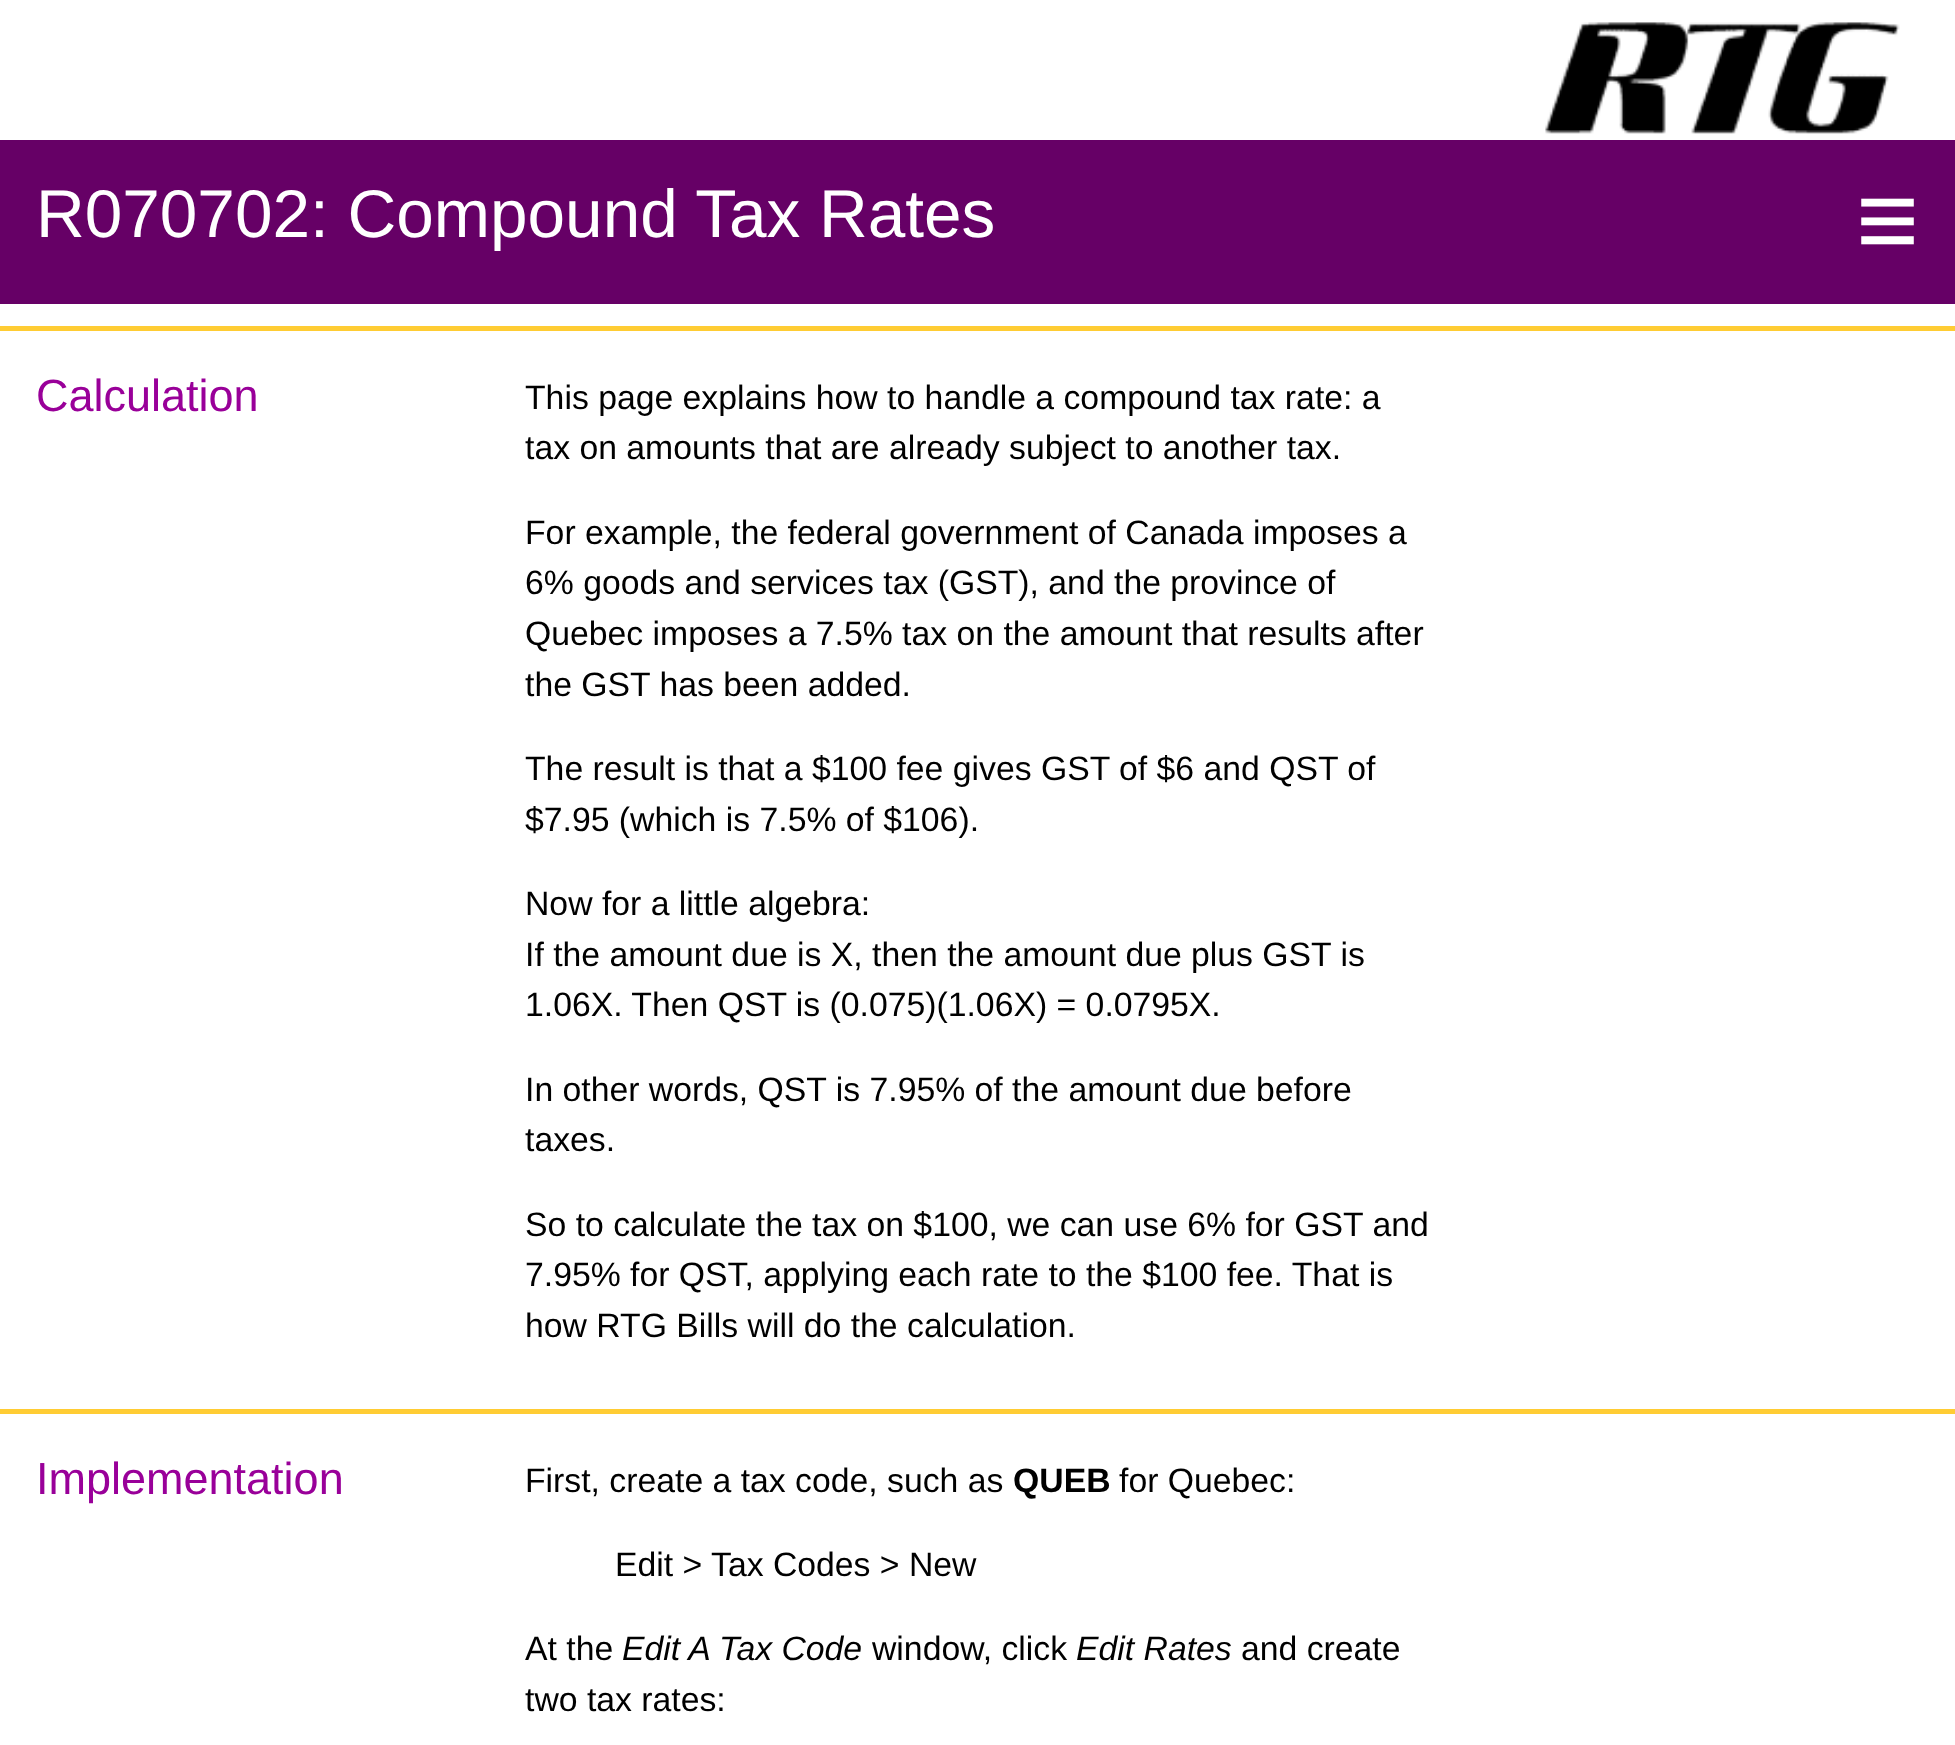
async function draw(canvas) {
	canvas.width = 1955;
	canvas.height = 1745;
	const c = canvas.getContext('2d');
	c.miterLimit = 4;
	c.fontKerning = 'normal';
	async function loadImage(src) {
		const img = new Image();
		img.src = src;
		await img.decode();
		return img;
	}

	c.fillStyle = '#fff';
	c.fillRect(0, 0, 1955, 1745);
	c.drawImage(await loadImage('img1.png'), 1545, 22, 355, 112);
	c.fillStyle = '#606';
	c.fillRect(0, 140, 1955, 164);
	c.font = '67.5px Liberation Sans';
	c.fillStyle = '#fff';
	c.fillText('R070702: Compound Tax Rates', 36, 237);
	c.font = '108px Liberation Sans';
	c.fillText('≡', 1856, 257);
	c.fillStyle = '#fc3';
	c.fillRect(0, 326, 1955, 5);
	c.font = '45px Liberation Sans';
	c.fillStyle = '#909';
	c.fillText('Calculation', 36, 411);
	c.font = '33.75px Liberation Sans';
	c.fillStyle = '#000';
	for (const [text, x, y] of [
		['This page explains how to handle a compound tax rate: a', 525, 409],
		['tax on amounts that are already subject to another tax.', 525, 459],
		['For example, the federal government of Canada imposes a', 525, 544],
		['6% goods and services tax (GST), and the province of', 525, 594],
		['Quebec imposes a 7.5% tax on the amount that results after', 525, 645],
		['the GST has been added.', 525, 696],
		['The result is that a $100 fee gives GST of $6 and QST of', 525, 780],
		['$7.95 (which is 7.5% of $106).', 525, 831],
		['Now for a little algebra:', 525, 915],
		['If the amount due is X, then the amount due plus GST is', 525, 966],
		['1.06X. Then QST is (0.075)(1.06X) = 0.0795X.', 525, 1016],
		['In other words, QST is 7.95% of the amount due before', 525, 1101],
		['taxes.', 525, 1151],
		['So to calculate the tax on $100, we can use 6% for GST and', 525, 1236],
		['7.95% for QST, applying each rate to the $100 fee. That is', 525, 1286],
		['how RTG Bills will do the calculation.', 525, 1337],
	]) {
		c.fillText(text, x, y);
	}
	c.fillStyle = '#fc3';
	c.fillRect(0, 1409, 1955, 5);
	c.font = '45px Liberation Sans';
	c.fillStyle = '#909';
	c.fillText('Implementation', 36, 1494);
	c.font = '33.75px Liberation Sans';
	c.fillStyle = '#000';
	c.fillText('First, create a tax code, such as', 525, 1492);
	c.font = 'bold 33.75px Liberation Sans';
	c.fillText('QUEB', 1013, 1492);
	c.font = '33.75px Liberation Sans';
	for (const [text, x, y] of [
		['for Quebec:', 1119, 1492],
		['Edit > Tax Codes > New', 615, 1576],
		['At the', 525, 1660],
	]) {
		c.fillText(text, x, y);
	}
	c.font = 'italic 33.75px Liberation Sans';
	c.fillText('Edit A Tax Code', 622, 1660);
	c.font = '33.75px Liberation Sans';
	c.fillText('window, click', 872, 1660);
	c.font = 'italic 33.75px Liberation Sans';
	c.fillText('Edit Rates', 1076, 1660);
	c.font = '33.75px Liberation Sans';
	c.fillText('and create', 1241, 1660);
	c.fillText('two tax rates:', 525, 1711);
}

draw(document.querySelector('canvas'));
